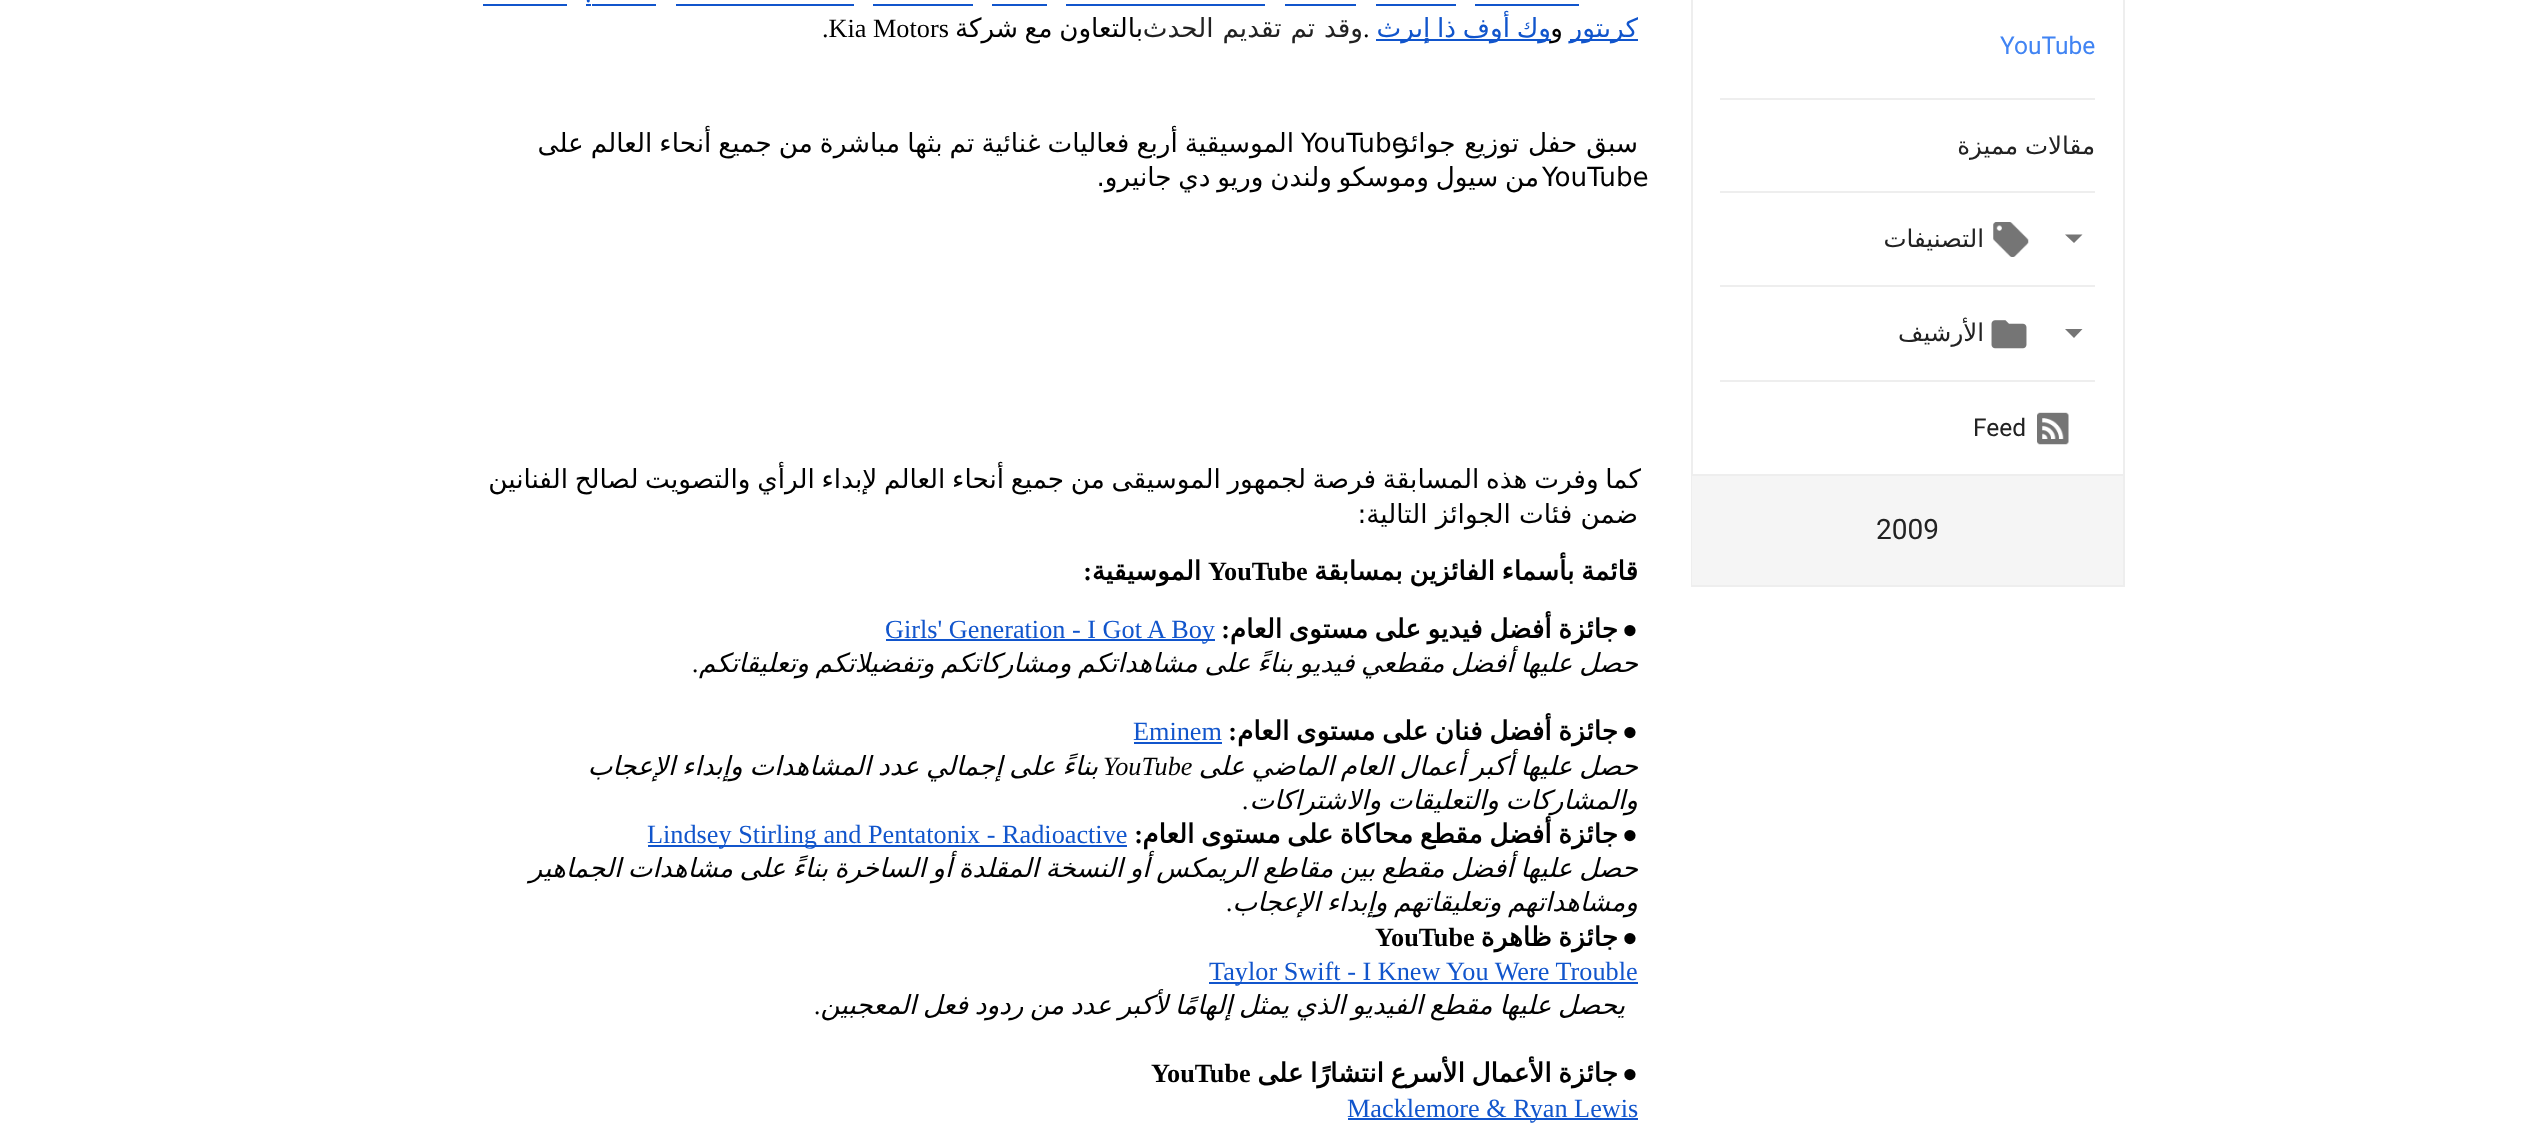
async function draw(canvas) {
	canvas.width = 2536;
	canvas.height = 1128;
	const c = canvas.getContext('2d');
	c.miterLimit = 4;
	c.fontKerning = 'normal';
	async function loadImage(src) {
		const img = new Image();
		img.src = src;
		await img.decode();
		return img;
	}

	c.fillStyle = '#fff';
	c.fillRect(0, 0, 2536, 1128);
	for (const [x, y, w, h, color] of [
		[2123, 0, 2, 586, '#eee'],
		[1691, 585, 434, 2, '#eee'],
		[1691, 0, 2, 586, '#eee'],
		[1720, 98, 375, 2, '#eee'],
	]) {
		c.fillStyle = color;
		c.fillRect(x, y, w, h);
	}
	c.font = '24.5px Roboto';
	c.fillStyle = '#4184f3';
	c.fillText('YouTube', 2000, 54);
	c.fillStyle = '#eee';
	c.fillRect(1720, 191, 375, 2);
	c.wordSpacing = '-1px';
	c.direction = 'rtl';
	c.font = '24.5px DejaVu Sans';
	c.fillStyle = '#222';
	c.fillText('مقالات مميزة', 2095, 154);
	c.fillStyle = '#eee';
	c.fillRect(1720, 285, 375, 2);
	c.fillStyle = '#757575';
	c.beginPath();
	c.moveTo(2065, 234.5);
	c.lineTo(2082.5, 234.5);
	c.lineTo(2074, 243);
	c.closePath();
	c.fill();
	c.drawImage(await loadImage('img1.png'), 1993, 222, 36, 35);
	c.wordSpacing = '0px';
	c.fillStyle = '#222';
	c.fillText('التصنيفات', 1984, 247);
	c.fillStyle = '#eee';
	c.fillRect(1720, 380, 375, 2);
	c.fillStyle = '#757575';
	c.beginPath();
	c.moveTo(2065, 329);
	c.lineTo(2082.5, 329);
	c.lineTo(2074, 338);
	c.closePath();
	c.fill();
	c.drawImage(await loadImage('img2.png'), 1991, 320, 36, 29);
	c.fillStyle = '#222';
	c.fillText('الأرشيف', 1984, 341);
	c.drawImage(await loadImage('img3.png'), 2037, 412, 32, 33);
	c.direction = 'ltr';
	c.font = '24.5px Roboto';
	c.fillText('Feed', 1973, 436);
	c.fillStyle = '#f5f5f5';
	c.fillRect(1692, 476, 431, 109);
	c.fillStyle = '#eee';
	c.fillRect(1692, 474, 431, 2);
	c.font = '28px Roboto';
	c.fillStyle = '#222';
	c.fillText('2009', 1876, 539);
	c.font = '26.25px Liberation Serif';
	c.fillStyle = '#15c';
	c.fillText('.', 585, 2);
	for (const [x, y, w, h, color] of [
		[586, 4, 5, 2, '#15c'],
		[592, 4, 64, 2, '#15c'],
		[1475, 4, 104, 2, '#15c'],
		[1376, 4, 80, 2, '#15c'],
		[1285, 4, 71, 2, '#15c'],
		[1066, 4, 199, 2, '#15c'],
		[992, 4, 55, 2, '#15c'],
		[873, 4, 100, 2, '#15c'],
		[676, 4, 178, 2, '#15c'],
		[1570, 39, 68, 2, '#15c'],
	]) {
		c.fillStyle = color;
		c.fillRect(x, y, w, h);
	}
	c.direction = 'rtl';
	c.font = '26.25px DejaVu Sans';
	c.fillText('كريتور', 1638, 37);
	c.fillRect(483, 4, 84, 2);
	c.fillStyle = '#000';
	c.fillText('و', 1563, 37);
	c.fillStyle = '#15c';
	c.fillRect(1376, 39, 175, 2);
	c.wordSpacing = '-1.6px';
	c.fillText('وك أوف ذا إيرث', 1551, 37);
	c.wordSpacing = '0px';
	c.direction = 'ltr';
	c.font = '26.25px Liberation Serif';
	c.fillStyle = '#000';
	c.fillText('.', 1363, 37);
	c.wordSpacing = '0.5px';
	c.direction = 'rtl';
	c.font = '26.25px DejaVu Sans';
	c.fillStyle = '#222';
	c.fillText('وقد تم تقديم الحدث', 1363, 37);
	c.wordSpacing = '-1.75px';
	c.fillStyle = '#000';
	c.fillText('بالتعاون مع شركة', 1143, 37);
	c.wordSpacing = '0px';
	c.direction = 'ltr';
	c.font = '26.25px Liberation Serif';
	c.fillText('.Kia Motors', 822, 37);
	c.wordSpacing = '-1.25px';
	c.direction = 'rtl';
	c.font = '26.25px DejaVu Sans';
	c.fillText('الموسيقية أربع فعاليات غنائية تم بثها مباشرة من جميع أنحاء العالم على', 1294, 152);
	c.wordSpacing = '0px';
	c.direction = 'ltr';
	c.fillText('YouTube', 1301, 152);
	c.wordSpacing = '0.5px';
	c.direction = 'rtl';
	c.fillText('سبق حفل توزيع جوائز', 1638, 152);
	c.wordSpacing = '-1.6px';
	c.fillText('من سيول وموسكو ولندن وريو دي جانيرو.', 1539, 186);
	c.wordSpacing = '0px';
	c.direction = 'ltr';
	c.fillText('YouTube', 1542, 186);
	c.wordSpacing = '-1.6px';
	c.direction = 'rtl';
	c.fillText('كما وفرت هذه المسابقة فرصة لجمهور الموسيقى من جميع أنحاء العالم لإبداء الرأي والتصويت لصالح الفنانين', 1641, 488);
	c.wordSpacing = '0px';
	c.fillText('ضمن فئات الجوائز التالية:', 1638, 523);
	c.wordSpacing = '-1.75px';
	c.font = 'bold 26.25px DejaVu Sans';
	c.fillText('قائمة بأسماء الفائزين بمسابقة', 1638, 580);
	c.wordSpacing = '0px';
	c.direction = 'ltr';
	c.font = 'bold 26.25px Liberation Serif';
	c.fillText('YouTube', 1208, 580);
	c.direction = 'rtl';
	c.font = 'bold 26.25px DejaVu Sans';
	c.fillText('الموسيقية', 1201, 580);
	c.font = 'bold 26.25px Liberation Serif';
	c.fillText(':', 1092, 580);
	c.direction = 'ltr';
	c.font = '26.25px Liberation Serif';
	c.fillText('●', 1622, 638);
	c.wordSpacing = '-1.75px';
	c.direction = 'rtl';
	c.font = 'bold 26.25px DejaVu Sans';
	c.fillText('جائزة أفضل فيديو على مستوى العام', 1618, 638);
	c.wordSpacing = '0px';
	c.font = 'bold 26.25px Liberation Serif';
	c.fillText(':', 1230, 638);
	c.fillStyle = '#15c';
	c.fillRect(886, 639, 329, 2);
	c.direction = 'ltr';
	c.font = '26.25px Liberation Serif';
	c.fillText('Girls\' Generation - I Got A Boy', 885, 638);
	c.wordSpacing = '-1.75px';
	c.direction = 'rtl';
	c.font = 'italic 26.25px DejaVu Sans';
	c.fillStyle = '#000';
	c.fillText('حصل عليها أفضل مقطعي فيديو بناءً على مشاهداتكم ومشاركاتكم وتفضيلاتكم وتعليقاتكم', 1638, 672);
	c.wordSpacing = '0px';
	c.font = 'italic 26.25px Liberation Serif';
	c.fillText('.', 699, 672);
	c.direction = 'ltr';
	c.font = '26.25px Liberation Serif';
	c.fillText('●', 1622, 740);
	c.wordSpacing = '-1.75px';
	c.direction = 'rtl';
	c.font = 'bold 26.25px DejaVu Sans';
	c.fillText('جائزة أفضل فنان على مستوى العام', 1618, 740);
	c.wordSpacing = '0px';
	c.font = 'bold 26.25px Liberation Serif';
	c.fillText(':', 1237, 740);
	c.direction = 'ltr';
	c.font = '26.25px Liberation Serif';
	c.fillStyle = '#15c';
	c.fillText('Eminem', 1133, 740);
	c.fillRect(1134, 742, 88, 2);
	c.wordSpacing = '-1.75px';
	c.direction = 'rtl';
	c.font = 'italic 26.25px DejaVu Sans';
	c.fillStyle = '#000';
	c.fillText('حصل عليها أكبر أعمال العام الماضي على', 1638, 775);
	c.wordSpacing = '-1.5px';
	c.fillText('بناءً على إجمالي عدد المشاهدات وإبداء الإعجاب', 1098, 775);
	c.wordSpacing = '0px';
	c.direction = 'ltr';
	c.font = 'italic 26.25px Liberation Serif';
	c.fillText('YouTube', 1103, 775);
	c.wordSpacing = '-1.75px';
	c.direction = 'rtl';
	c.font = 'italic 26.25px DejaVu Sans';
	c.fillText('والمشاركات والتعليقات والاشتراكات', 1638, 809);
	c.wordSpacing = '0px';
	c.font = 'italic 26.25px Liberation Serif';
	c.fillText('.', 1249, 809);
	c.direction = 'ltr';
	c.font = '26.25px Liberation Serif';
	c.fillText('●', 1622, 843);
	c.wordSpacing = '-1.75px';
	c.direction = 'rtl';
	c.font = 'bold 26.25px DejaVu Sans';
	c.fillText('جائزة أفضل مقطع محاكاة على مستوى العام', 1618, 843);
	c.wordSpacing = '0px';
	c.font = 'bold 26.25px Liberation Serif';
	c.fillText(':', 1143, 843);
	c.fillStyle = '#15c';
	c.fillRect(648, 845, 479, 2);
	c.direction = 'ltr';
	c.font = '26.25px Liberation Serif';
	c.fillText('Lindsey Stirling and Pentatonix - Radioactive', 647, 843);
	c.wordSpacing = '-1.75px';
	c.direction = 'rtl';
	c.font = 'italic 26.25px DejaVu Sans';
	c.fillStyle = '#000';
	c.fillText('حصل عليها أفضل مقطع بين مقاطع الريمكس أو النسخة المقلدة أو الساخرة بناءً على مشاهدات الجماهير', 1638, 877);
	c.fillText('ومشاهداتهم وتعليقاتهم وإبداء الإعجاب', 1638, 911);
	c.wordSpacing = '0px';
	c.font = 'italic 26.25px Liberation Serif';
	c.fillText('.', 1233, 911);
	c.direction = 'ltr';
	c.font = '26.25px Liberation Serif';
	c.fillText('●', 1622, 946);
	c.wordSpacing = '-1.75px';
	c.direction = 'rtl';
	c.font = 'bold 26.25px DejaVu Sans';
	c.fillText('جائزة ظاهرة', 1618, 946);
	c.wordSpacing = '0px';
	c.direction = 'ltr';
	c.font = 'bold 26.25px Liberation Serif';
	c.fillText('YouTube', 1375, 946);
	c.fillStyle = '#15c';
	c.fillRect(1209, 982, 429, 2);
	c.font = '26.25px Liberation Serif';
	c.fillText('Taylor Swift - I Knew You Were Trouble', 1209, 980);
	c.wordSpacing = '-1.75px';
	c.direction = 'rtl';
	c.font = 'italic 26.25px DejaVu Sans';
	c.fillStyle = '#000';
	c.fillText('يحصل عليها مقطع الفيديو الذي يمثل إلهامًا لأكبر عدد من ردود فعل المعجبين', 1625, 1014);
	c.wordSpacing = '0px';
	c.font = 'italic 26.25px Liberation Serif';
	c.fillText('.', 821, 1014);
	c.direction = 'ltr';
	c.font = '26.25px Liberation Serif';
	c.fillText('●', 1622, 1082);
	c.wordSpacing = '-1.75px';
	c.direction = 'rtl';
	c.font = 'bold 26.25px DejaVu Sans';
	c.fillText('جائزة الأعمال الأسرع انتشارًا على', 1618, 1082);
	c.wordSpacing = '0px';
	c.direction = 'ltr';
	c.font = 'bold 26.25px Liberation Serif';
	c.fillText('YouTube', 1151, 1082);
	c.fillStyle = '#15c';
	c.fillRect(1348, 1118, 290, 2);
	c.font = '26.25px Liberation Serif';
	c.fillText('Macklemore & Ryan Lewis', 1347, 1117);
}

draw(document.querySelector('canvas'));
